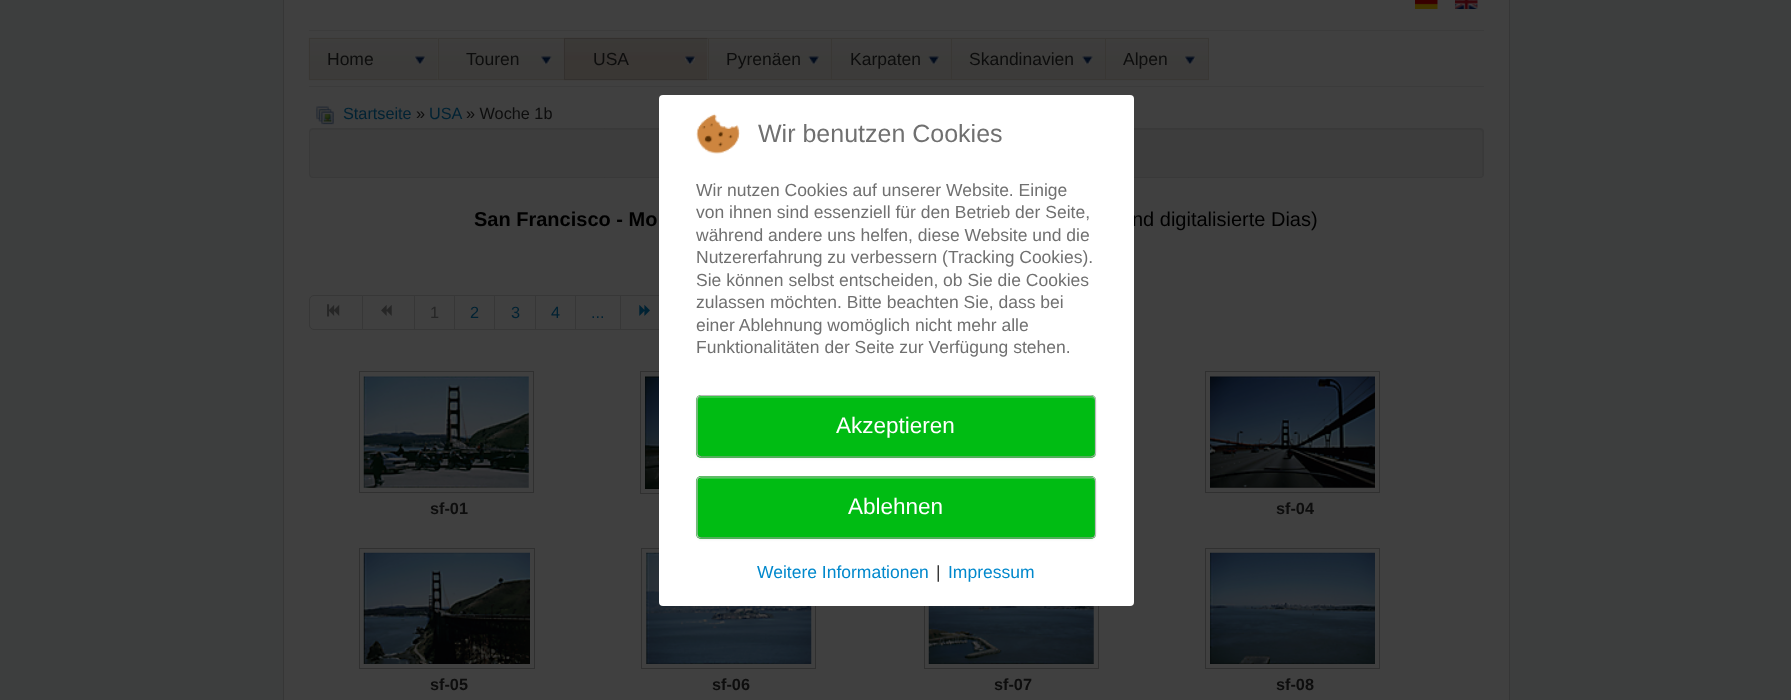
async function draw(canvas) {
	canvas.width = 1791;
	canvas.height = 700;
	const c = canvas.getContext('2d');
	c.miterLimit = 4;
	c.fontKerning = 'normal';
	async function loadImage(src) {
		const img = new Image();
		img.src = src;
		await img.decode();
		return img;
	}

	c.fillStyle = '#3d3e3e';
	c.fillRect(0, 0, 1791, 700);
	c.fillStyle = '#404040';
	c.beginPath();
	c.rect(283.5, -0.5, 1226, 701);
	c.fill();
	c.strokeStyle = '#363636';
	c.stroke();
	c.drawImage(await loadImage('img1.png'), 1415, 0, 23, 9);
	c.drawImage(await loadImage('img2.png'), 1455, 0, 23, 9);
	c.fillStyle = '#3b3b3b';
	c.fillRect(309, 30, 1175, 1);
	c.fillRect(309, 86, 1175, 1);
	c.drawImage(await loadImage('img3.png'), 308, 37, 130, 44);
	for (const [x, y, w, h, color] of [
		[309, 38, 129, 1, '#393734'],
		[309, 79, 129, 1, '#393734'],
		[309, 38, 1, 42, '#393734'],
	]) {
		c.fillStyle = color;
		c.fillRect(x, y, w, h);
	}
	c.font = '17.5px Liberation Sans';
	c.fillStyle = '#0d0d0d';
	c.fillText('Home', 327, 65);
	c.drawImage(await loadImage('img4.png'), 415, 56, 10, 8);
	c.drawImage(await loadImage('img5.png'), 437, 37, 127, 44);
	for (const [x, y, w, h, color] of [
		[438, 38, 126, 1, '#393734'],
		[438, 79, 126, 1, '#393734'],
		[438, 38, 1, 42, '#393734'],
	]) {
		c.fillStyle = color;
		c.fillRect(x, y, w, h);
	}
	c.fillStyle = '#0d0d0d';
	c.fillText('Touren', 466, 65);
	c.drawImage(await loadImage('img6.png'), 541, 56, 11, 8);
	c.drawImage(await loadImage('img7.png'), 563, 37, 145, 44);
	for (const [x, y, w, h, color] of [
		[564, 38, 144, 1, '#33302e'],
		[564, 79, 144, 1, '#33302e'],
		[564, 38, 1, 42, '#33302e'],
	]) {
		c.fillStyle = color;
		c.fillRect(x, y, w, h);
	}
	c.fillStyle = '#0d0d0d';
	c.fillText('USA', 593, 65);
	c.drawImage(await loadImage('img8.png'), 685, 56, 10, 8);
	c.drawImage(await loadImage('img9.png'), 707, 37, 125, 44);
	for (const [x, y, w, h, color] of [
		[708, 38, 123, 1, '#393734'],
		[708, 79, 123, 1, '#393734'],
		[708, 38, 1, 42, '#393734'],
	]) {
		c.fillStyle = color;
		c.fillRect(x, y, w, h);
	}
	c.fillStyle = '#0d0d0d';
	c.fillText('Pyrenäen', 726, 65);
	c.drawImage(await loadImage('img10.png'), 808, 56, 11, 8);
	c.drawImage(await loadImage('img11.png'), 831, 37, 121, 44);
	for (const [x, y, w, h, color] of [
		[831, 38, 120, 1, '#393734'],
		[831, 79, 120, 1, '#393734'],
		[831, 38, 1, 42, '#393734'],
	]) {
		c.fillStyle = color;
		c.fillRect(x, y, w, h);
	}
	c.fillStyle = '#0d0d0d';
	c.fillText('Karpaten', 850, 65);
	c.drawImage(await loadImage('img10.png'), 928, 56, 11, 8);
	c.drawImage(await loadImage('img12.png'), 951, 37, 154, 44);
	for (const [x, y, w, h, color] of [
		[951, 38, 154, 1, '#393734'],
		[951, 79, 154, 1, '#393734'],
		[951, 38, 1, 42, '#393734'],
	]) {
		c.fillStyle = color;
		c.fillRect(x, y, w, h);
	}
	c.fillStyle = '#0d0d0d';
	c.fillText('Skandinavien', 969, 65);
	c.drawImage(await loadImage('img13.png'), 1082, 56, 11, 8);
	c.drawImage(await loadImage('img14.png'), 1105, 37, 104, 44);
	c.strokeStyle = '#393734';
	c.strokeRect(1105.5, 38.5, 103, 41);
	c.fillText('Alpen', 1123, 65);
	c.drawImage(await loadImage('img15.png'), 1185, 56, 10, 8);
	c.drawImage(await loadImage('img16.png'), 316, 106, 18, 19);
	c.font = '16.25px Liberation Sans';
	c.fillStyle = '#023';
	c.fillText('Startseite', 343, 119);
	c.fillStyle = '#0d0d0d';
	c.fillText('»', 416, 119);
	c.fillStyle = '#023';
	c.fillText('USA', 429, 119);
	c.fillStyle = '#0d0d0d';
	c.fillText('» Woche 1b', 466, 119);
	c.fillStyle = '#3d3d3d';
	c.beginPath();
	c.roundRect(309, 128, 1175, 50, 4);
	c.fill();
	c.fillStyle = '#3a3a3a';
	c.beginPath();
	c.moveTo(312, 130);
	c.lineTo(1480, 130);
	c.bezierCurveTo(1481, 130, 1482, 131, 1482, 132);
	c.lineTo(1482, 176);
	c.bezierCurveTo(1483, 175, 1483, 174, 1483, 174);
	c.lineTo(1483, 132);
	c.bezierCurveTo(1483, 130, 1482, 129, 1480, 129);
	c.lineTo(312, 129);
	c.bezierCurveTo(311, 129, 310, 130, 310, 132);
	c.bezierCurveTo(310, 131, 311, 130, 312, 130);
	c.closePath();
	c.fill();
	c.beginPath();
	c.roundRect(309.5, 128.5, 1174, 49, 3.5);
	c.strokeStyle = '#393939';
	c.stroke();
	c.font = 'bold 20px Liberation Sans';
	c.fillStyle = '#000';
	c.fillText('San Francisco - Mo', 474, 226);
	c.font = '20px Liberation Sans';
	c.fillText('nd digitalisierte Dias)', 1132, 226);
	c.beginPath();
	c.roundRect(309.5, 295.5, 53, 34, [4.5, 0, 0, 4.5]);
	c.strokeStyle = '#373737';
	c.stroke();
	c.drawImage(await loadImage('img17.png'), 327, 304, 13, 13);
	for (const [x, y, w, h, color] of [
		[363, 295, 296, 1, '#373737'],
		[414, 295, 1, 35, '#373737'],
		[363, 329, 52, 1, '#373737'],
	]) {
		c.fillStyle = color;
		c.fillRect(x, y, w, h);
	}
	c.drawImage(await loadImage('img18.png'), 381, 305, 11, 11);
	c.fillRect(454, 295, 1, 35);
	c.fillRect(415, 329, 40, 1);
	c.font = '16.25px Liberation Sans';
	c.fillStyle = '#262626';
	c.fillText('1', 430, 318);
	c.fillStyle = '#373737';
	c.fillRect(494, 295, 1, 35);
	c.fillRect(455, 329, 40, 1);
	c.fillStyle = '#023';
	c.fillText('2', 470, 318);
	c.fillStyle = '#373737';
	c.fillRect(535, 295, 1, 35);
	c.fillRect(495, 329, 41, 1);
	c.fillStyle = '#023';
	c.fillText('3', 511, 318);
	c.fillStyle = '#373737';
	c.fillRect(575, 295, 1, 35);
	c.fillRect(536, 329, 40, 1);
	c.fillStyle = '#023';
	c.fillText('4', 551, 318);
	c.fillStyle = '#373737';
	c.fillRect(620, 295, 1, 35);
	c.fillRect(576, 329, 83, 1);
	c.fillStyle = '#023';
	c.fillText('...', 591, 318);
	c.drawImage(await loadImage('img19.png'), 639, 305, 11, 11);
	c.strokeStyle = '#303030';
	c.strokeRect(640.5, 371.5, 175, 122);
	c.drawImage(await loadImage('img20.png'), 645, 376, 14, 113);
	c.strokeRect(359.5, 371.5, 174, 121);
	c.drawImage(await loadImage('img21.png'), 363, 376, 166, 112);
	c.font = 'bold 16.25px Liberation Sans';
	c.fillStyle = '#0d0d0d';
	c.fillText('sf-01', 430, 514);
	c.strokeRect(1205.5, 371.5, 174, 121);
	c.drawImage(await loadImage('img22.png'), 1210, 376, 165, 112);
	c.fillText('sf-04', 1276, 514);
	c.strokeRect(359.5, 548.5, 175, 120);
	c.drawImage(await loadImage('img23.png'), 363, 552, 167, 112);
	c.fillText('sf-05', 430, 690);
	c.strokeRect(641.5, 548.5, 174, 120);
	c.drawImage(await loadImage('img24.png'), 646, 552, 166, 112);
	c.fillText('sf-06', 712, 690);
	c.strokeRect(924.5, 548.5, 174, 120);
	c.drawImage(await loadImage('img25.png'), 928, 606, 166, 58);
	c.fillText('sf-07', 994, 690);
	c.strokeRect(1205.5, 548.5, 174, 120);
	c.drawImage(await loadImage('img26.png'), 1210, 552, 165, 112);
	c.fillText('sf-08', 1276, 690);
	c.fillStyle = '#fff';
	c.beginPath();
	c.roundRect(659, 95, 475, 511, 4);
	c.fill();
	c.drawImage(await loadImage('img27.png'), 696, 113, 44, 41);
	c.font = '25px Liberation Sans';
	c.fillStyle = '#707070';
	c.fillText('Wir benutzen Cookies', 758, 142);
	c.font = '17.5px Liberation Sans';
	for (const [text, x, y] of [
		['Wir nutzen Cookies auf unserer Website. Einige', 696, 196],
		['von ihnen sind essenziell für den Betrieb der Seite,', 696, 218],
		['während andere uns helfen, diese Website und die', 696, 241],
		['Nutzererfahrung zu verbessern (Tracking Cookies).', 696, 263],
		['Sie können selbst entscheiden, ob Sie die Cookies', 696, 286],
		['zulassen möchten. Bitte beachten Sie, dass bei', 696, 308],
		['einer Ablehnung womöglich nicht mehr alle', 696, 331],
		['Funktionalitäten der Seite zur Verfügung stehen.', 696, 353],
	]) {
		c.fillText(text, x, y);
	}
	c.fillStyle = '#0000000d';
	c.filter = 'blur(1px)';
	c.beginPath();
	c.roundRect(696, 396, 400, 63, 5);
	c.fill();
	c.filter = 'none';
	c.fillStyle = '#00bc13';
	c.beginPath();
	c.roundRect(696, 395, 400, 63, 5);
	c.fill();
	c.fillStyle = '#33c942';
	c.beginPath();
	c.moveTo(701, 398);
	c.lineTo(1091, 398);
	c.bezierCurveTo(1093, 398, 1095, 399, 1095, 401);
	c.bezierCurveTo(1095, 398, 1094, 396, 1091, 396);
	c.lineTo(702, 396);
	c.bezierCurveTo(699, 396, 698, 398, 698, 401);
	c.bezierCurveTo(698, 399, 699, 398, 701, 398);
	c.closePath();
	c.fill();
	c.beginPath();
	c.moveTo(1094.5, 455.5);
	c.lineTo(1091, 457);
	c.lineTo(701, 457);
	c.lineTo(698, 455.5);
	c.strokeStyle = '#a2a2a2';
	c.lineWidth = 1.2;
	c.stroke();
	c.beginPath();
	c.moveTo(698, 455.5);
	c.bezierCurveTo(697.5, 455, 697, 453.5, 697, 452.5);
	c.lineTo(697, 400);
	c.bezierCurveTo(697, 399, 697.5, 397.5, 698, 397);
	c.bezierCurveTo(699, 396, 700, 395.5, 701, 395.5);
	c.lineTo(1091, 395.5);
	c.bezierCurveTo(1092.5, 395.5, 1093.5, 396, 1094.5, 397);
	c.bezierCurveTo(1095, 397.5, 1095.5, 399, 1095.5, 400);
	c.lineTo(1095.5, 452.5);
	c.bezierCurveTo(1095.5, 453.5, 1095, 455, 1094.5, 455.5);
	c.strokeStyle = '#bbb';
	c.stroke();
	c.font = '22.5px Liberation Sans';
	c.fillStyle = '#fff';
	c.fillText('Akzeptieren', 836, 433);
	c.fillStyle = '#0000000d';
	c.filter = 'blur(1px)';
	c.beginPath();
	c.roundRect(696, 478, 400, 62, 5);
	c.fill();
	c.filter = 'none';
	c.fillStyle = '#00bc13';
	c.beginPath();
	c.roundRect(696, 476, 400, 63, 5);
	c.fill();
	c.fillStyle = '#33c942';
	c.beginPath();
	c.moveTo(701, 479);
	c.lineTo(1091, 479);
	c.bezierCurveTo(1093, 479, 1095, 480, 1095, 482);
	c.bezierCurveTo(1095, 480, 1093, 478, 1091, 478);
	c.lineTo(702, 478);
	c.bezierCurveTo(701, 478, 699, 479, 699, 480);
	c.closePath();
	c.fill();
	c.beginPath();
	c.moveTo(1094.5, 537);
	c.lineTo(1091, 538);
	c.lineTo(701, 538);
	c.lineTo(698, 537);
	c.strokeStyle = '#a2a2a2';
	c.stroke();
	c.beginPath();
	c.moveTo(698, 537);
	c.bezierCurveTo(697.5, 536, 697, 535, 697, 534);
	c.lineTo(697, 481);
	c.bezierCurveTo(697, 480, 697.5, 479, 698, 478);
	c.bezierCurveTo(699, 477.5, 700, 477, 701, 477);
	c.lineTo(1091, 477);
	c.bezierCurveTo(1092.5, 477, 1093.5, 477.5, 1094.5, 478);
	c.bezierCurveTo(1095, 479, 1095.5, 480, 1095.5, 481);
	c.lineTo(1095.5, 534);
	c.bezierCurveTo(1095.5, 535, 1095, 536, 1094.5, 537);
	c.strokeStyle = '#bbb';
	c.stroke();
	c.fillStyle = '#fff';
	c.fillText('Ablehnen', 848, 514);
	c.font = '17.5px Liberation Sans';
	c.fillStyle = '#08c';
	c.fillText('Weitere Informationen', 757, 578);
	c.fillStyle = '#333';
	c.fillText('|', 936, 578);
	c.fillStyle = '#08c';
	c.fillText('Impressum', 948, 578);
}

draw(document.querySelector('canvas'));
